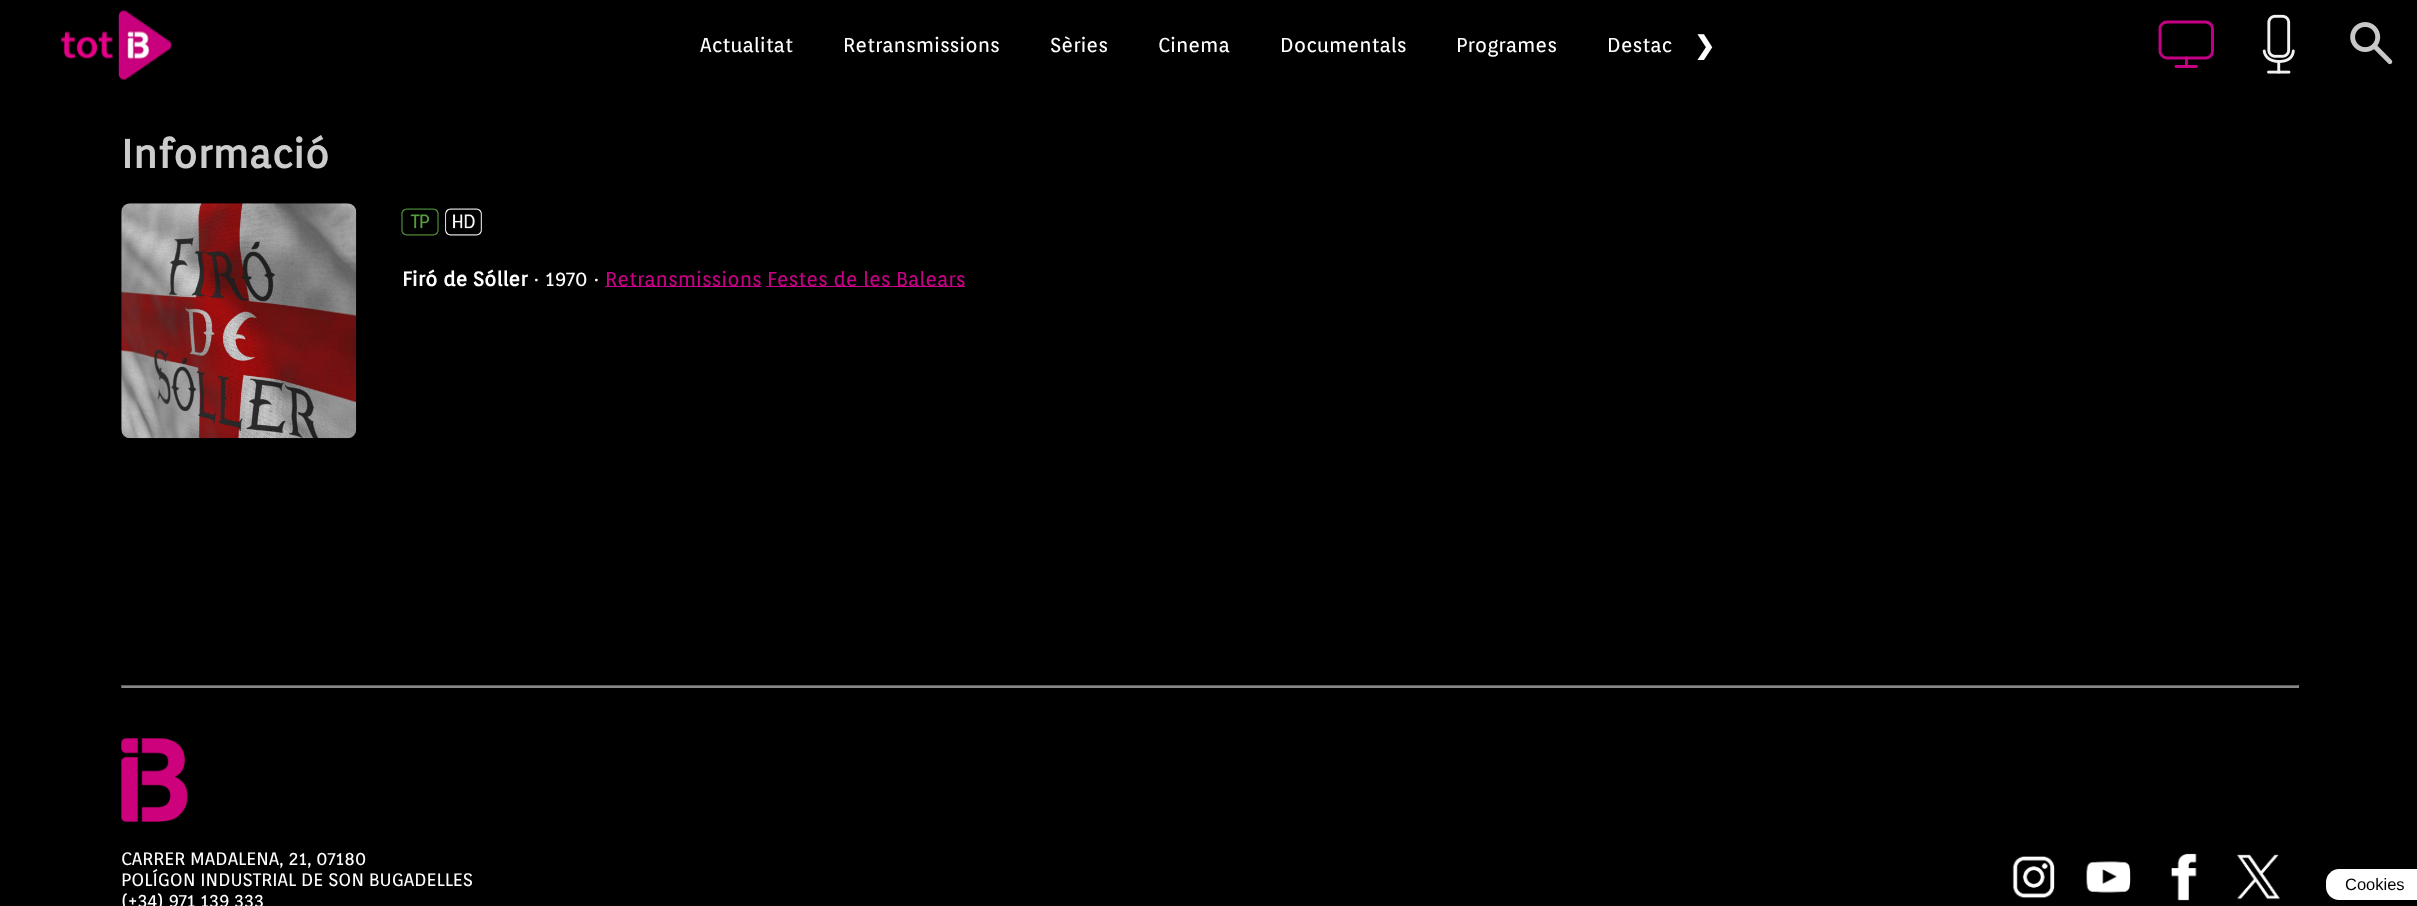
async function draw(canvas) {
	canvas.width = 2417;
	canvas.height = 906;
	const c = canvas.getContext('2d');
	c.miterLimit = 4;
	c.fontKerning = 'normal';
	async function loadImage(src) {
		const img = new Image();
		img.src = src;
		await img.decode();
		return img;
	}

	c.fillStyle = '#000';
	c.fillRect(0, 0, 2417, 906);
	c.drawImage(await loadImage('img1.png'), 61, 10, 111, 70);
	c.font = '20px Orienta';
	c.fillStyle = '#fff';
	for (const [text, x, y] of [
		['Actualitat', 700, 52],
		['Retransmissions', 843, 52],
		['Sèries', 1050, 52],
		['Cinema', 1158, 52],
		['Documentals', 1280, 52],
		['Programes', 1456, 52],
		['Destac', 1607, 52],
	]) {
		c.fillText(text, x, y);
	}
	c.font = 'bold 25px DejaVu Sans';
	c.fillText('❯', 1694, 54);
	c.beginPath();
	c.moveTo(2205.5, 58);
	c.lineTo(2167, 58);
	c.bezierCurveTo(2163.5, 58, 2160, 55, 2160, 51);
	c.lineTo(2160, 28.5);
	c.bezierCurveTo(2160, 25, 2163, 22, 2167, 22);
	c.lineTo(2205.5, 22);
	c.bezierCurveTo(2209, 22, 2212.5, 25, 2212.5, 28.5);
	c.lineTo(2212.5, 51.5);
	c.bezierCurveTo(2212.5, 55, 2209, 58, 2205.5, 58);
	c.closePath();
	c.strokeStyle = '#c50084';
	c.lineWidth = 2.9;
	c.stroke();
	c.beginPath();
	c.moveTo(2176, 66.5);
	c.lineTo(2196.5, 66.5);
	c.moveTo(2186.5, 58);
	c.lineTo(2186.5, 66.5);
	c.lineCap = 'round';
	c.stroke();
	c.drawImage(await loadImage('img2.png'), 2262, 14, 33, 60);
	c.drawImage(await loadImage('img3.png'), 2350, 22, 43, 43);
	c.font = 'bold 40px Orienta';
	c.fillStyle = '#ccc';
	c.fillText('Informació', 121, 168);
	c.drawImage(await loadImage('img4.png'), 121, 203, 236, 236);
	c.drawImage(await loadImage('img5.png'), 401, 208, 38, 28);
	c.drawImage(await loadImage('img6.png'), 445, 208, 37, 28);
	c.font = 'bold 20px Orienta';
	c.fillStyle = '#fff';
	c.fillText('Firó de Sóller', 402, 286);
	c.font = '20px Orienta';
	c.fillText('· 1970 ·', 533, 286);
	c.fillStyle = '#c50084';
	c.fillRect(605, 286, 156, 1);
	c.fillText('Retransmissions', 605, 286);
	c.fillRect(766, 286, 199, 1);
	c.fillText('Festes de les Balears', 767, 286);
	for (const [x, y, w, h, color] of [
		[121, 686, 2178, 2, '#888'],
		[121, 685, 2178, 1, '#5b5b5b'],
		[2298, 685, 1, 3, '#888'],
		[121, 685, 1, 3, '#5b5b5b'],
	]) {
		c.fillStyle = color;
		c.fillRect(x, y, w, h);
	}
	c.drawImage(await loadImage('img7.png'), 121, 738, 67, 84);
	c.font = '18px Orienta';
	c.fillStyle = '#fff';
	for (const [text, x, y] of [
		['CARRER MADALENA, 21, 07180', 121, 865],
		['POLÍGON INDUSTRIAL DE SON BUGADELLES', 121, 886],
		['(+34) 971 139 333', 121, 907],
	]) {
		c.fillText(text, x, y);
	}
	c.drawImage(await loadImage('img8.png'), 2012, 856, 43, 43);
	c.drawImage(await loadImage('img9.png'), 2086, 861, 45, 32);
	c.drawImage(await loadImage('img10.png'), 2171, 853, 26, 48);
	c.drawImage(await loadImage('img11.png'), 2236, 854, 44, 46);
	c.beginPath();
	c.moveTo(2339, 869);
	c.lineTo(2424, 869);
	c.lineTo(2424, 900);
	c.lineTo(2339, 900);
	c.bezierCurveTo(2332, 900, 2326, 894, 2326, 887);
	c.lineTo(2326, 882);
	c.bezierCurveTo(2326, 875, 2332, 869, 2339, 869);
	c.closePath();
	c.fill();
	c.font = '16.5px Liberation Sans';
	c.fillStyle = '#000';
	c.fillText('Cookies', 2345, 890);
}

draw(document.querySelector('canvas'));
